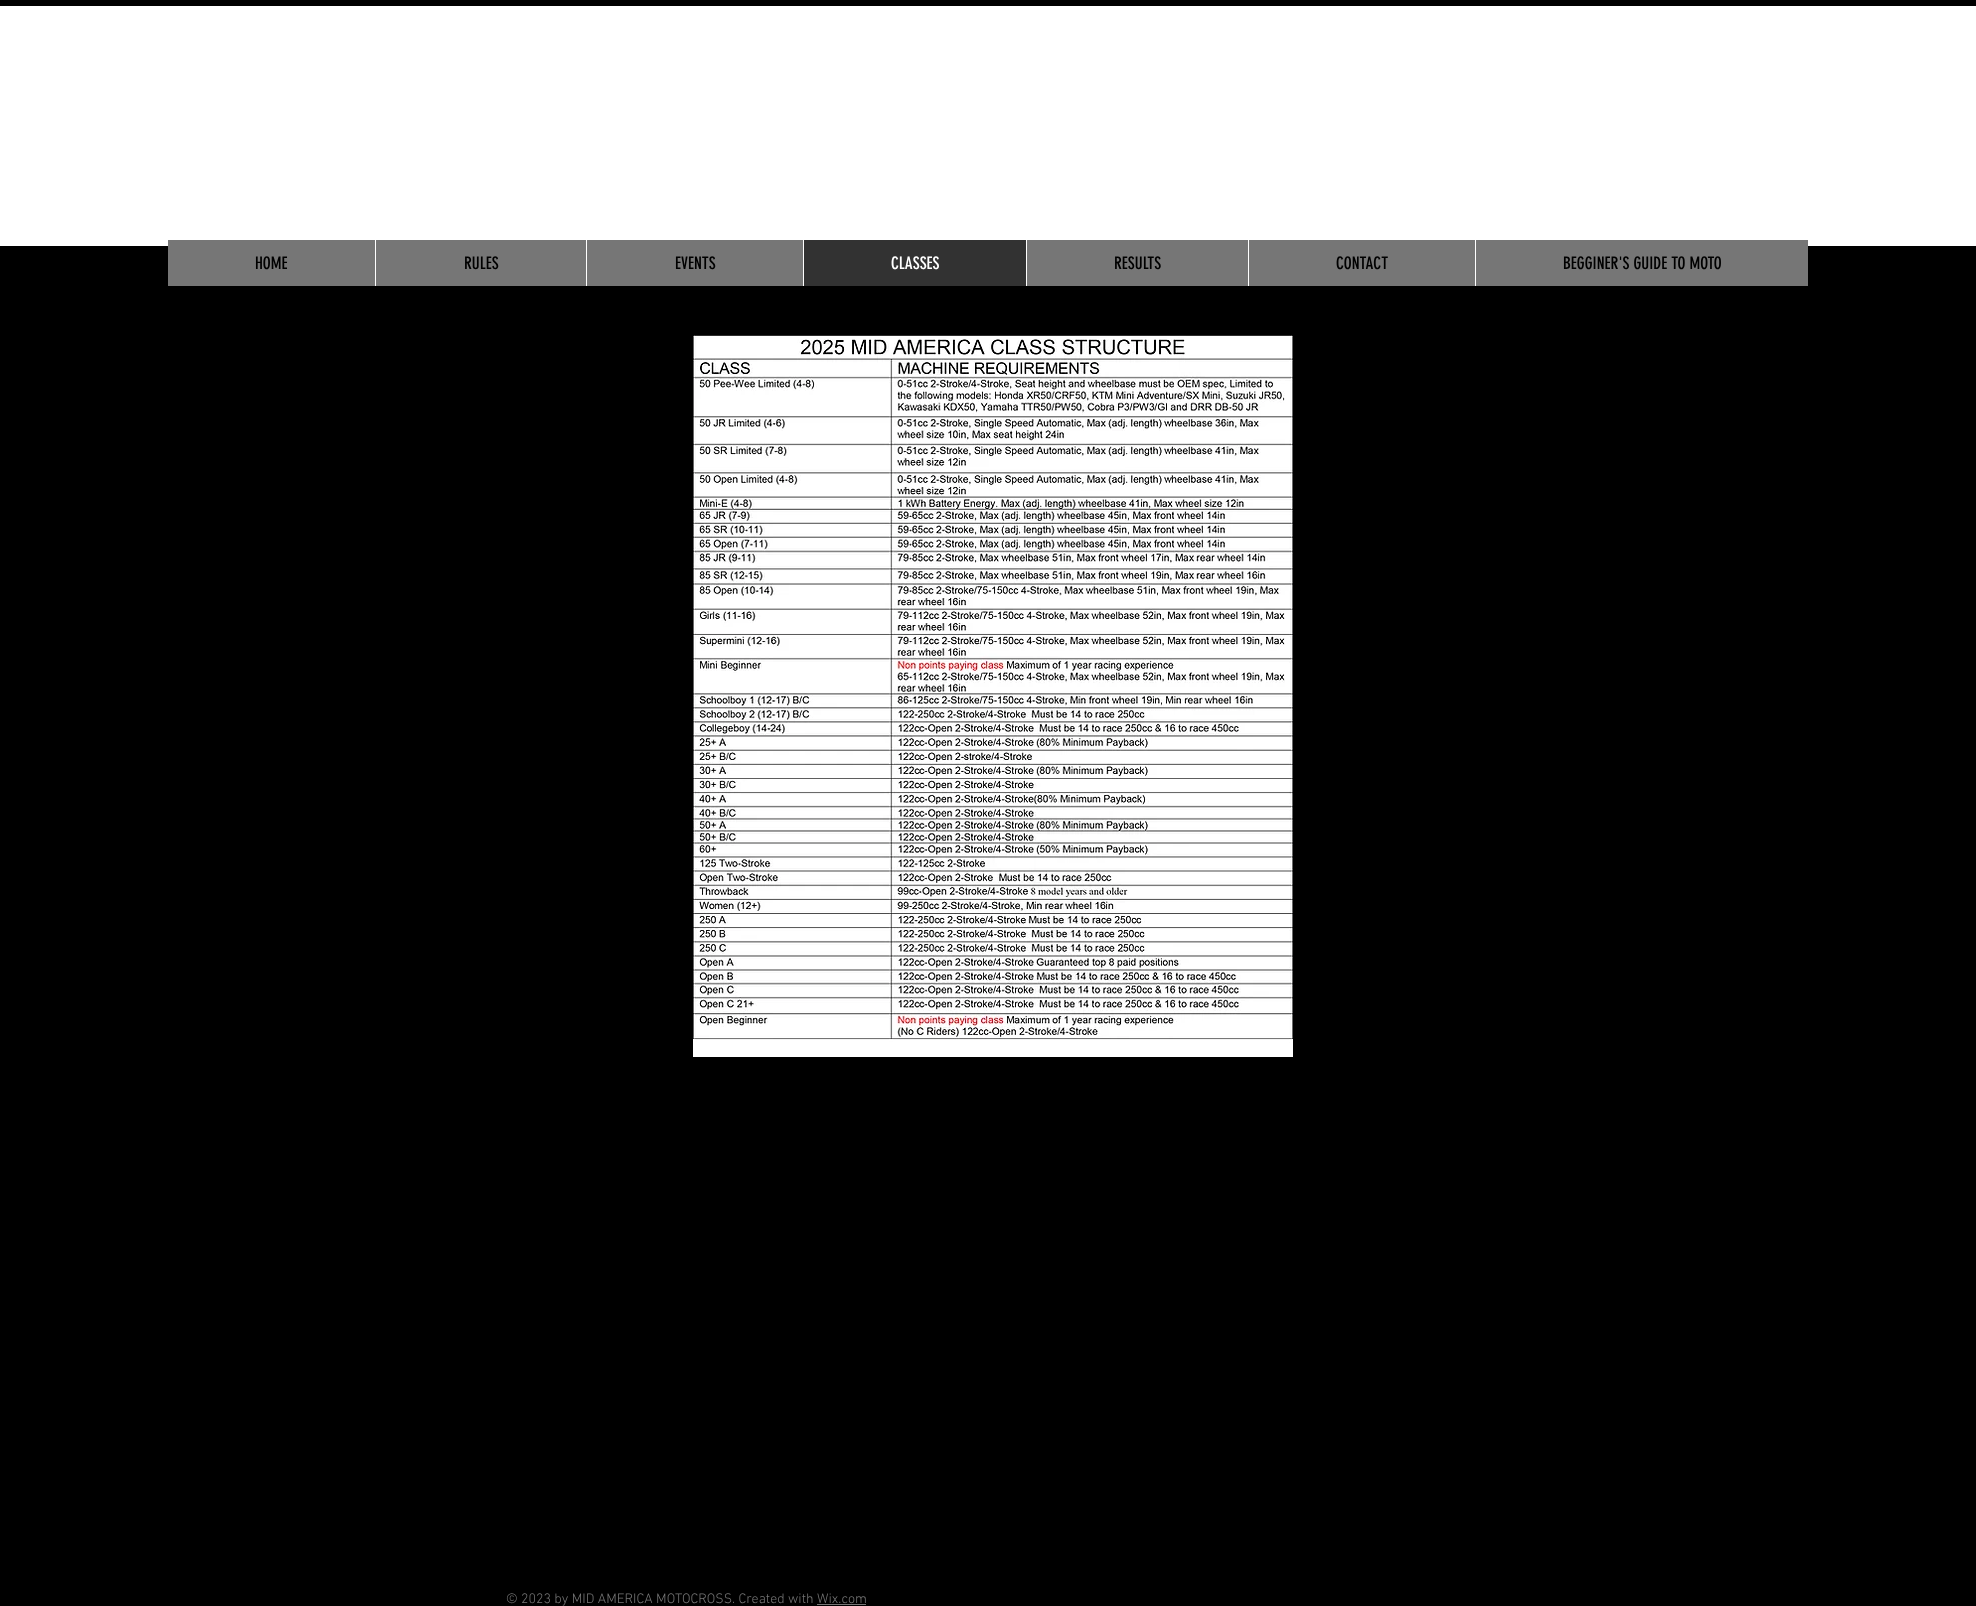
async function draw(canvas) {
	canvas.width = 1976;
	canvas.height = 1606;
	const c = canvas.getContext('2d');
	c.miterLimit = 4;
	c.fontKerning = 'normal';
	async function loadImage(src) {
		const img = new Image();
		img.src = src;
		await img.decode();
		return img;
	}

	c.fillStyle = '#000';
	c.fillRect(0, 0, 1976, 1606);
	c.fillStyle = '#fff';
	c.fillRect(0, 6, 1976, 240);
	c.fillStyle = '#767676';
	c.fillRect(168, 240, 1640, 46);
	c.font = '17px "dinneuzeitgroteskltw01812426"';
	c.fillStyle = '#000';
	c.fillText('HOME', 255, 269);
	c.fillStyle = '#fff';
	c.fillRect(375, 240, 1, 46);
	c.fillStyle = '#000';
	c.fillText('RULES', 464, 269);
	c.fillStyle = '#fff';
	c.fillRect(586, 240, 1, 46);
	c.fillStyle = '#000';
	c.fillText('EVENTS', 675, 269);
	c.fillStyle = '#323232';
	c.fillRect(804, 240, 222, 46);
	c.fillStyle = '#fff';
	c.fillRect(803, 240, 1, 46);
	c.fillText('CLASSES', 891, 269);
	c.fillRect(1026, 240, 1, 46);
	c.fillStyle = '#000';
	c.fillText('RESULTS', 1114, 269);
	c.fillStyle = '#fff';
	c.fillRect(1248, 240, 1, 46);
	c.fillStyle = '#000';
	c.fillText('CONTACT', 1336, 269);
	c.fillStyle = '#fff';
	c.fillRect(1475, 240, 1, 46);
	c.fillStyle = '#000';
	c.fillText('BEGGINER\'S GUIDE TO MOTO', 1563, 269);
	c.drawImage(await loadImage('img1.png'), 693, 335, 600, 722);
	c.font = '300 14px "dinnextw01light"';
	c.fillStyle = '#767676';
	c.fillText('© 2023 by MID AMERICA MOTOCROSS. Created with Wix.com', 506, 1603);
	c.fillRect(817, 1604, 49, 1);
}

draw(document.querySelector('canvas'));
